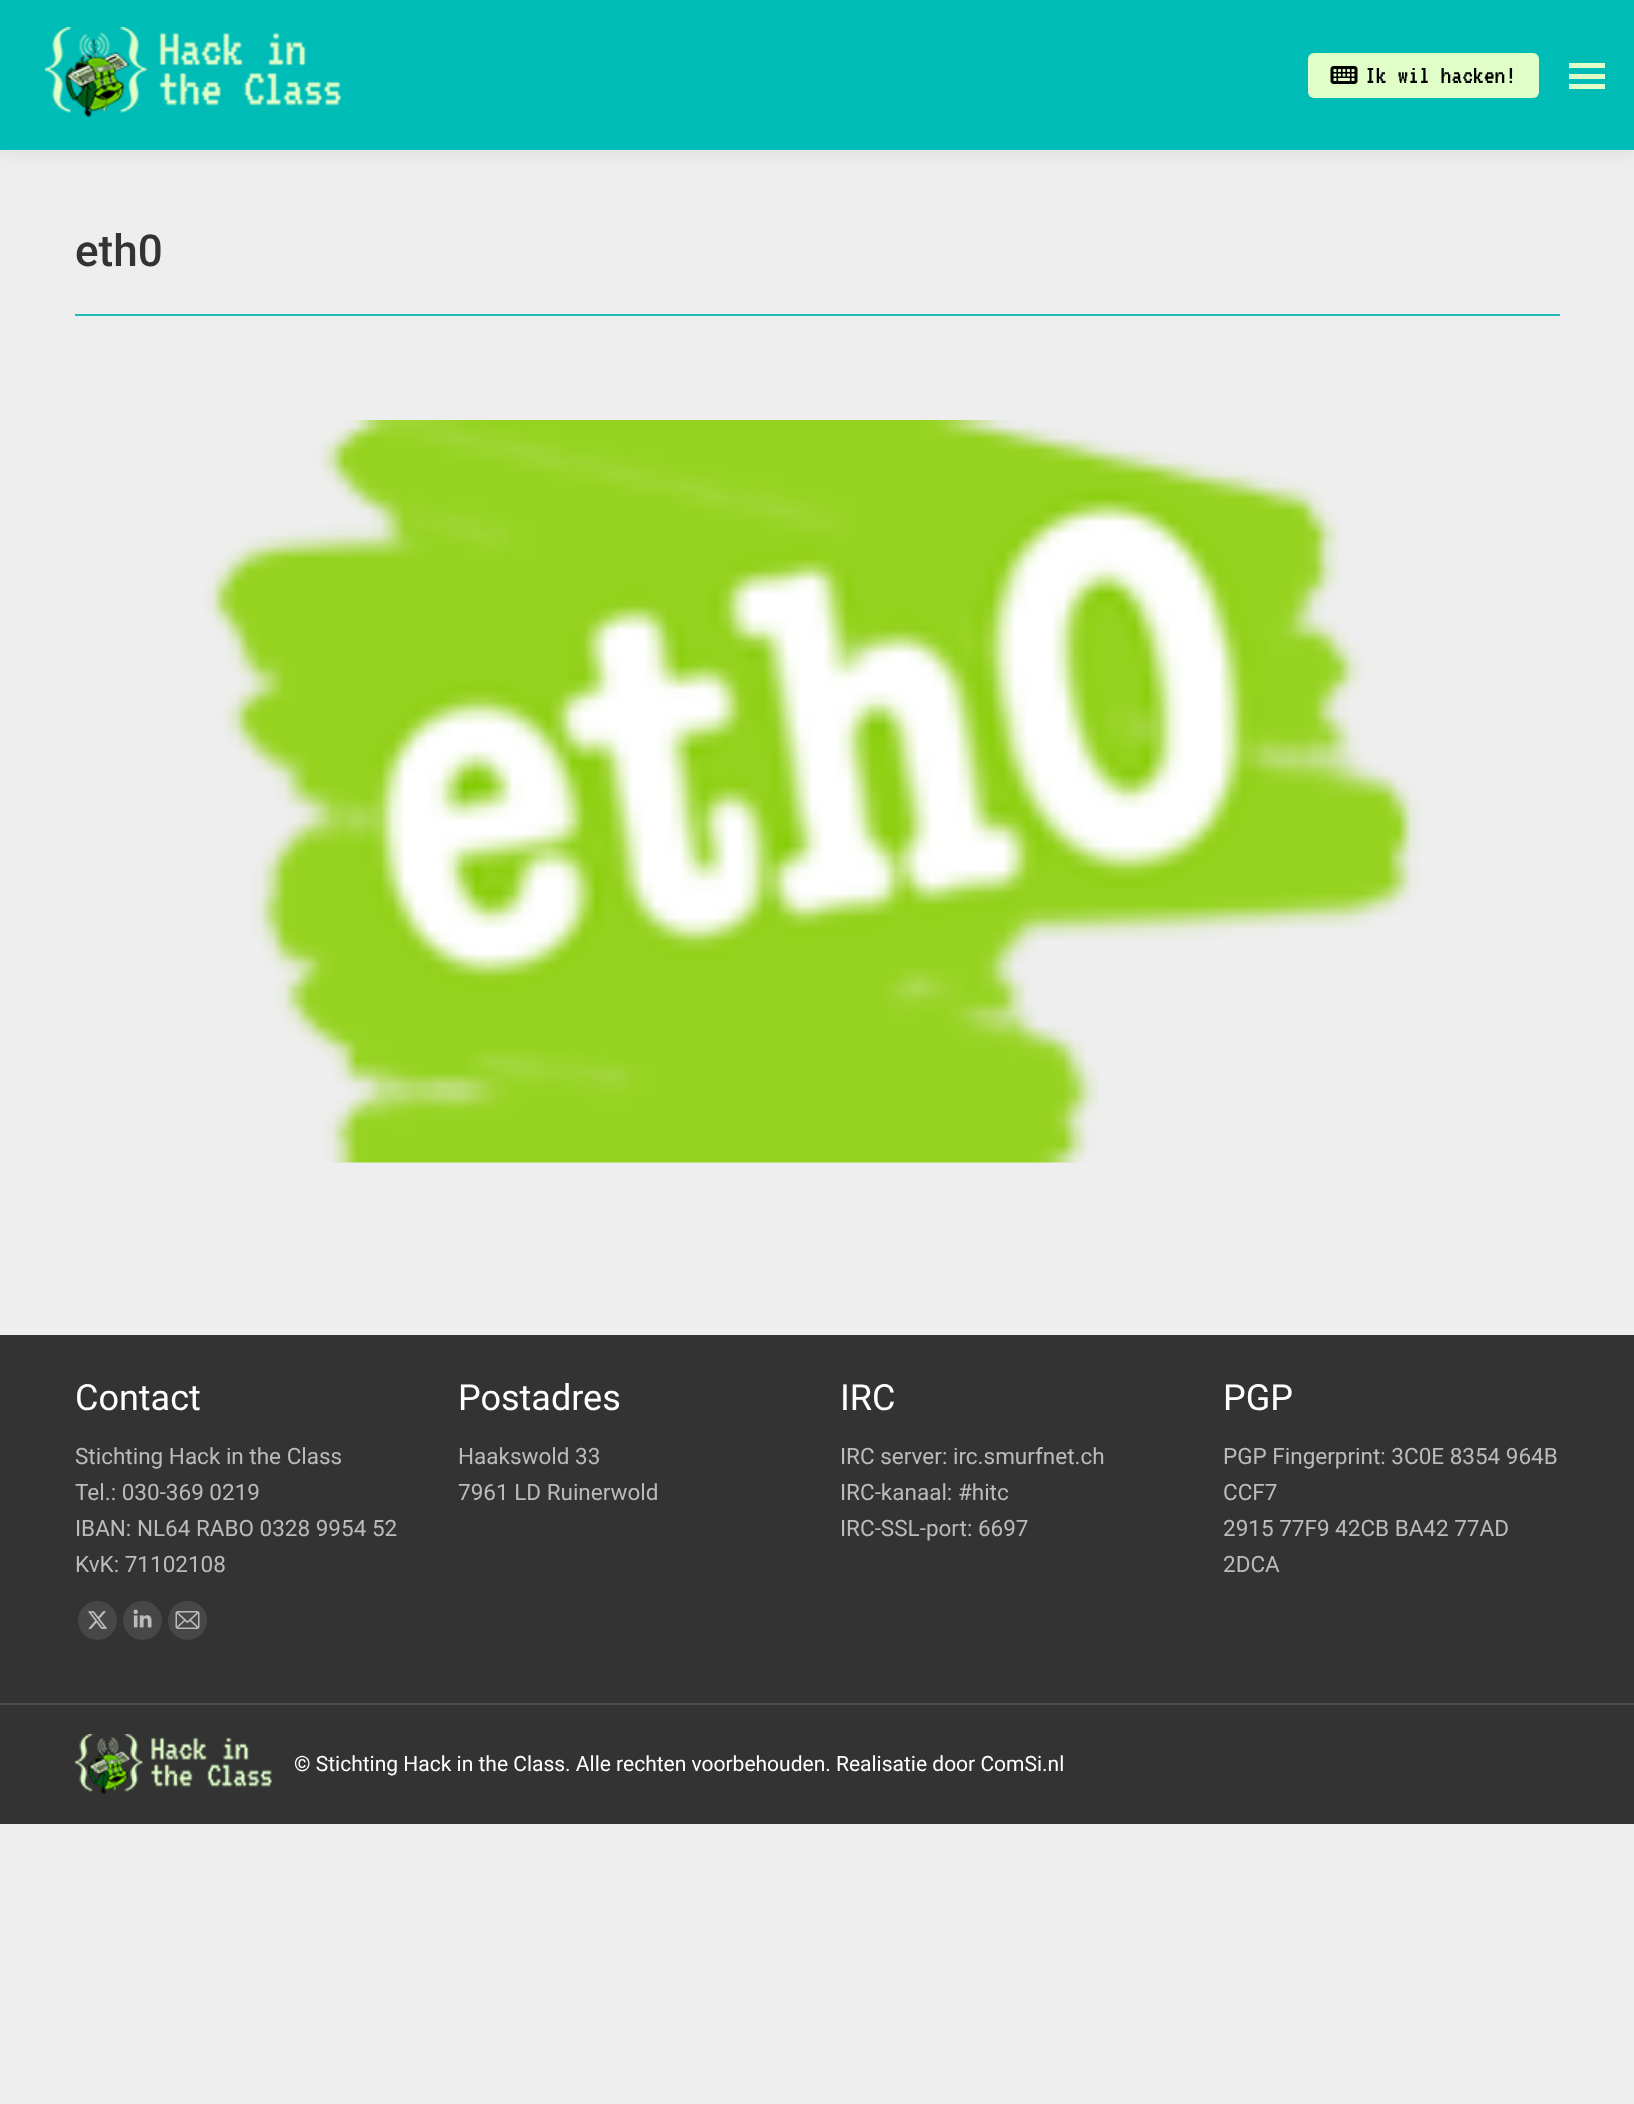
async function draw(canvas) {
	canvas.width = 1634;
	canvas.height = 2104;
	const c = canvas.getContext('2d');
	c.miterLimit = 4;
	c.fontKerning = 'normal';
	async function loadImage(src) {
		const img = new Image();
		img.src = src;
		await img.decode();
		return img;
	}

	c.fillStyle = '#eee';
	c.fillRect(0, 0, 1634, 2104);
	c.fillStyle = '#00000012';
	c.filter = 'blur(11px)';
	c.beginPath();
	c.rect(-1, -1, 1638, 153);
	c.fill();
	c.filter = 'none';
	c.fillStyle = '#00bcb7';
	c.fillRect(0, 0, 1634, 150);
	c.drawImage(await loadImage('img1.png'), 45, 27, 296, 90);
	c.fillStyle = '#e0ffc8';
	c.beginPath();
	c.roundRect(1308, 53, 231, 45, 6);
	c.fill();
	c.drawImage(await loadImage('img2.png'), 1330, 66, 28, 18);
	c.font = '27px "VT323"';
	c.fillStyle = '#000';
	c.fillText('Ik wil hacken!', 1365, 83);
	for (const [x, y, w, h, color] of [
		[1569, 63, 36, 5, '#e0ffc8'],
		[1569, 74, 36, 5, '#e0ffc8'],
		[1569, 84, 36, 5, '#e0ffc8'],
	]) {
		c.fillStyle = color;
		c.fillRect(x, y, w, h);
	}
	c.font = '500 44px Roboto';
	c.fillStyle = '#333';
	c.fillText('eth0', 75, 266);
	c.fillStyle = '#1ebdb6';
	c.fillRect(75, 314, 1485, 2);
	c.drawImage(await loadImage('img3.png'), 205, 420, 1215, 743);
	c.fillStyle = '#333';
	c.fillRect(0, 1335, 1634, 489);
	c.font = '36px Roboto';
	c.fillStyle = '#fff';
	c.fillText('Contact', 75, 1410);
	c.font = '22.5px Roboto';
	c.fillStyle = '#bbb';
	for (const [text, x, y] of [
		['Stichting Hack in the Class', 75, 1464],
		['Tel.: 030-369 0219', 75, 1500],
		['IBAN: NL64 RABO 0328 9954 52', 75, 1536],
		['KvK: 71102108', 75, 1572],
	]) {
		c.fillText(text, x, y);
	}
	c.fillStyle = '#474747';
	c.beginPath();
	c.arc(97.5, 1620.5, 19.5, 0, 2 * Math.PI);
	c.fill();
	c.drawImage(await loadImage('img4.png'), 88, 1611, 20, 18);
	c.beginPath();
	c.arc(142.5, 1620.5, 19.5, 0, 2 * Math.PI);
	c.fill();
	c.drawImage(await loadImage('img5.png'), 133, 1609, 19, 19);
	c.beginPath();
	c.arc(187.5, 1620.5, 19.5, 0, 2 * Math.PI);
	c.fill();
	c.drawImage(await loadImage('img6.png'), 175, 1611, 25, 18);
	c.font = '36px Roboto';
	c.fillStyle = '#fff';
	c.fillText('Postadres', 458, 1410);
	c.font = '22.5px Roboto';
	c.fillStyle = '#bbb';
	c.fillText('Haakswold 33', 458, 1464);
	c.fillText('7961 LD Ruinerwold', 458, 1500);
	c.font = '36px Roboto';
	c.fillStyle = '#fff';
	c.fillText('IRC', 840, 1410);
	c.font = '22.5px Roboto';
	c.fillStyle = '#bbb';
	for (const [text, x, y] of [
		['IRC server: irc.smurfnet.ch', 840, 1464],
		['IRC-kanaal: #hitc', 840, 1500],
		['IRC-SSL-port: 6697', 840, 1536],
	]) {
		c.fillText(text, x, y);
	}
	c.font = '36px Roboto';
	c.fillStyle = '#fff';
	c.fillText('PGP', 1223, 1410);
	c.font = '22.5px Roboto';
	c.fillStyle = '#bbb';
	for (const [text, x, y] of [
		['PGP Fingerprint: 3C0E 8354 964B', 1223, 1464],
		['CCF7', 1223, 1500],
		['2915 77F9 42CB BA42 77AD', 1223, 1536],
		['2DCA', 1223, 1572],
	]) {
		c.fillText(text, x, y);
	}
	c.fillStyle = '#4b4b4b';
	c.fillRect(0, 1703, 1634, 2);
	c.drawImage(await loadImage('img7.png'), 75, 1734, 197, 60);
	c.font = '21px Roboto';
	c.fillStyle = '#fff';
	c.fillText('© Stichting Hack in the Class. Alle rechten voorbehouden. Realisatie door ComSi.nl', 294, 1771);
}

draw(document.querySelector('canvas'));
